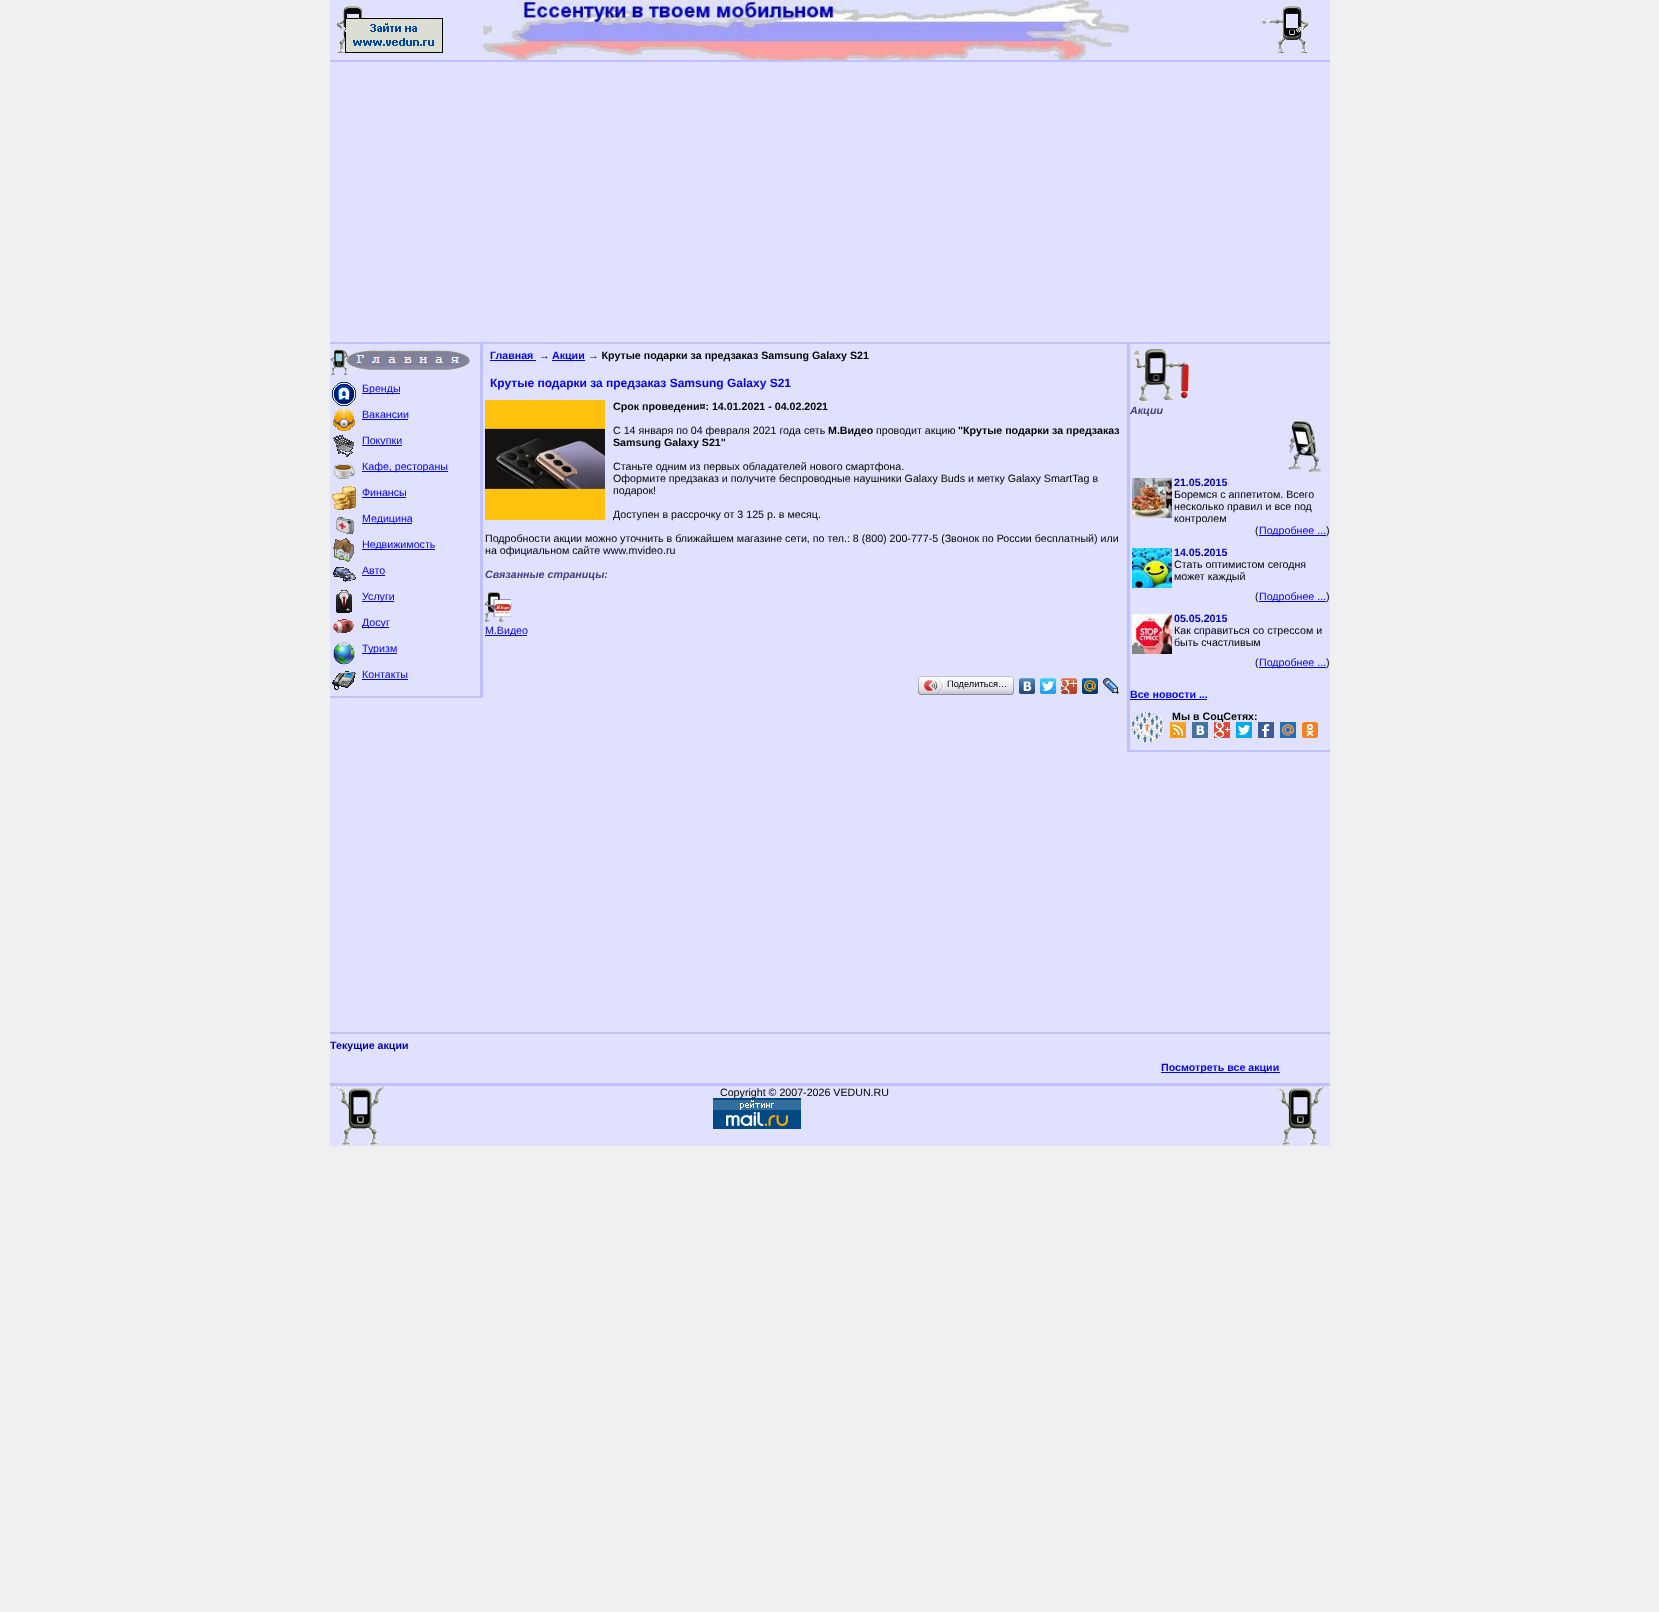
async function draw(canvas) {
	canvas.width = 1659;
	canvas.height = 1612;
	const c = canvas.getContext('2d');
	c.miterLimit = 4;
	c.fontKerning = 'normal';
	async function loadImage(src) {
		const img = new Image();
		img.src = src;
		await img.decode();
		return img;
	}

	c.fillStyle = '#f0f0f0';
	c.fillRect(0, 0, 1659, 1612);
	c.fillStyle = '#c0c0ff';
	c.fillRect(330, 60, 1000, 2);
	c.fillStyle = '#e0e0ff';
	c.fillRect(330, 0, 150, 60);
	c.drawImage(await loadImage('img1.png'), 336, 6, 107, 47);
	c.drawImage(await loadImage('img2.png'), 480, 0, 650, 60);
	c.fillRect(1130, 0, 200, 60);
	c.drawImage(await loadImage('img3.png'), 1262, 6, 47, 47);
	for (const [x, y, w, h, color] of [
		[330, 62, 1000, 1021, '#e0e0ff'],
		[330, 1083, 1000, 3, '#c0c0ff'],
		[330, 342, 1000, 2, '#c0c0ff'],
		[480, 344, 3, 354, '#c0c0ff'],
		[330, 696, 153, 2, '#c0c0ff'],
	]) {
		c.fillStyle = color;
		c.fillRect(x, y, w, h);
	}
	c.drawImage(await loadImage('img4.png'), 330, 349, 140, 26);
	c.drawImage(await loadImage('img5.png'), 332, 382, 24, 24);
	c.fillStyle = '#00f';
	c.fillRect(362, 393, 38, 1);
	c.font = '10.67px Liberation Sans';
	c.fillText('Бренды', 362, 392);
	c.drawImage(await loadImage('img6.png'), 333, 409, 22, 22);
	c.fillText('Вакансии', 362, 418);
	c.fillRect(362, 419, 46, 1);
	c.drawImage(await loadImage('img7.png'), 333, 435, 21, 22);
	c.fillRect(362, 445, 40, 1);
	c.fillText('Покупки', 362, 444);
	c.drawImage(await loadImage('img8.png'), 334, 464, 21, 15);
	c.fillRect(362, 471, 86, 1);
	c.fillText('Кафе, рестораны', 362, 470);
	c.drawImage(await loadImage('img9.png'), 332, 486, 24, 24);
	c.fillText('Финансы', 362, 496);
	c.fillRect(362, 497, 44, 1);
	c.drawImage(await loadImage('img10.png'), 336, 517, 18, 17);
	c.fillRect(362, 523, 50, 1);
	c.fillText('Медицина', 362, 522);
	c.drawImage(await loadImage('img11.png'), 333, 538, 21, 24);
	c.fillRect(362, 549, 73, 1);
	c.fillText('Недвижимость', 362, 548);
	c.drawImage(await loadImage('img12.png'), 333, 567, 23, 15);
	c.fillText('Авто', 362, 574);
	c.fillRect(362, 575, 23, 1);
	c.drawImage(await loadImage('img13.png'), 336, 590, 16, 23);
	c.fillRect(362, 601, 32, 1);
	c.fillText('Услуги', 362, 600);
	c.drawImage(await loadImage('img14.png'), 333, 619, 21, 14);
	c.fillRect(362, 627, 27, 1);
	c.fillText('Досуг', 362, 626);
	c.drawImage(await loadImage('img15.png'), 333, 642, 22, 23);
	c.fillRect(362, 653, 35, 1);
	c.fillText('Туризм', 362, 652);
	c.drawImage(await loadImage('img16.png'), 332, 671, 24, 19);
	c.fillText('Контакты', 362, 678);
	c.fillRect(362, 679, 46, 1);
	c.font = 'bold 10.67px Liberation Sans';
	c.fillText('Главная', 490, 359);
	c.fillRect(490, 360, 46, 1);
	c.fillStyle = '#000';
	c.fillText('→', 539, 359);
	c.fillStyle = '#00f';
	c.fillRect(552, 360, 33, 1);
	c.fillText('Акции', 552, 359);
	c.fillStyle = '#000';
	c.fillText('→ Крутые подарки за предзаказ Samsung Galaxy S21', 588, 359);
	c.font = 'bold 12px Liberation Sans';
	c.fillStyle = '#00f';
	c.fillText('Крутые подарки за предзаказ Samsung Galaxy S21', 490, 387);
	c.drawImage(await loadImage('img17.png'), 485, 400, 120, 120);
	c.font = 'bold 10.67px Liberation Sans';
	c.fillStyle = '#000';
	c.fillText('Срок проведени¤: 14.01.2021 - 04.02.2021', 613, 410);
	c.font = '10.67px Liberation Sans';
	c.fillText('С 14 января по 04 февраля 2021 года сеть', 613, 434);
	c.font = 'bold 10.67px Liberation Sans';
	c.fillText('М.Видео', 828, 434);
	c.font = '10.67px Liberation Sans';
	c.fillText('проводит акцию', 876, 434);
	c.font = 'bold 10.67px Liberation Sans';
	c.fillText('"Крутые подарки за предзаказ', 958, 434);
	c.fillText('Samsung Galaxy S21"', 613, 446);
	c.font = '10.67px Liberation Sans';
	for (const [text, x, y] of [
		['Станьте одним из первых обладателей нового смартфона.', 613, 470],
		['Оформите предзаказ и получите беспроводные наушники Galaxy Buds и метку Galaxy SmartTag в', 613, 482],
		['подарок!', 613, 494],
		['Доступен в рассрочку от 3 125 р. в месяц.', 613, 518],
		['Подробности акции можно уточнить в ближайшем магазине сети, по тел.: 8 (800) 200-777-5 (Звонок по России бесплатный) или', 485, 542],
		['на официальном сайте www.mvideo.ru', 485, 554],
	]) {
		c.fillText(text, x, y);
	}
	c.font = 'italic bold 10.67px Liberation Sans';
	c.fillStyle = '#404080';
	c.fillText('Связанные страницы:', 485, 578);
	c.drawImage(await loadImage('img18.png'), 485, 592, 27, 30);
	c.fillStyle = '#00f';
	c.fillRect(485, 635, 42, 1);
	c.font = '10.67px Liberation Sans';
	c.fillText('М.Видео', 485, 634);
	c.drawImage(await loadImage('img19.png'), 921, 676, 90, 19);
	c.drawImage(await loadImage('img20.png'), 918, 676, 3, 19);
	c.drawImage(await loadImage('img21.png'), 924, 677, 20, 17);
	c.font = '9.25px Liberation Sans';
	c.fillStyle = '#000';
	c.fillText('Поделиться…', 947, 687);
	c.drawImage(await loadImage('img22.png'), 1011, 676, 3, 19);
	c.drawImage(await loadImage('img23.png'), 1019, 678, 16, 16);
	c.drawImage(await loadImage('img24.png'), 1040, 678, 16, 16);
	c.drawImage(await loadImage('img25.png'), 1061, 678, 16, 16);
	c.drawImage(await loadImage('img26.png'), 1082, 678, 16, 16);
	c.drawImage(await loadImage('img27.png'), 1103, 678, 16, 16);
	c.fillStyle = '#c0c0ff';
	c.fillRect(1127, 750, 203, 2);
	c.fillRect(1127, 344, 3, 408);
	c.drawImage(await loadImage('img28.png'), 1133, 349, 56, 53);
	c.font = 'italic bold 10.67px Liberation Sans';
	c.fillStyle = '#404080';
	c.fillText('Акции', 1130, 414);
	c.fillStyle = '#e0e0ff';
	c.fillRect(1147, 416, 2, 1);
	c.drawImage(await loadImage('img29.png'), 1283, 416, 42, 60);
	c.drawImage(await loadImage('img30.png'), 1132, 478, 40, 40);
	c.font = 'bold 10.67px Liberation Sans';
	c.fillStyle = '#0000b0';
	c.fillText('21.05.2015', 1174, 486);
	c.font = '10.67px Liberation Sans';
	c.fillStyle = '#000';
	for (const [text, x, y] of [
		['Боремся с аппетитом. Всего', 1174, 498],
		['несколько правил и все под', 1174, 510],
		['контролем', 1174, 522],
		['(', 1255, 534],
	]) {
		c.fillText(text, x, y);
	}
	c.fillStyle = '#00f';
	c.fillRect(1259, 535, 67, 1);
	c.fillText('Подробнее ...', 1259, 534);
	c.fillStyle = '#000';
	c.fillText(')', 1326, 534);
	c.drawImage(await loadImage('img31.png'), 1132, 548, 40, 40);
	c.font = 'bold 10.67px Liberation Sans';
	c.fillStyle = '#0000b0';
	c.fillText('14.05.2015', 1174, 556);
	c.font = '10.67px Liberation Sans';
	c.fillStyle = '#000';
	for (const [text, x, y] of [
		['Стать оптимистом сегодня', 1174, 568],
		['может каждый', 1174, 580],
		['(', 1255, 600],
	]) {
		c.fillText(text, x, y);
	}
	c.fillStyle = '#00f';
	c.fillRect(1259, 601, 67, 1);
	c.fillText('Подробнее ...', 1259, 600);
	c.fillStyle = '#000';
	c.fillText(')', 1326, 600);
	c.drawImage(await loadImage('img32.png'), 1132, 614, 40, 40);
	c.font = 'bold 10.67px Liberation Sans';
	c.fillStyle = '#0000b0';
	c.fillText('05.05.2015', 1174, 622);
	c.font = '10.67px Liberation Sans';
	c.fillStyle = '#000';
	for (const [text, x, y] of [
		['Как справиться со стрессом и', 1174, 634],
		['быть счастливым', 1174, 646],
		['(', 1255, 666],
	]) {
		c.fillText(text, x, y);
	}
	c.fillStyle = '#00f';
	c.fillRect(1259, 667, 67, 1);
	c.fillText('Подробнее ...', 1259, 666);
	c.fillStyle = '#000';
	c.fillText(')', 1326, 666);
	c.font = 'bold 10.67px Liberation Sans';
	c.fillStyle = '#00f';
	c.fillText('Все новости ...', 1130, 698);
	c.fillRect(1130, 699, 77, 1);
	c.drawImage(await loadImage('img33.png'), 1131, 711, 33, 33);
	c.fillStyle = '#000';
	c.fillText('Мы в СоцСетях:', 1172, 720);
	c.drawImage(await loadImage('img34.png'), 1170, 722, 16, 16);
	c.drawImage(await loadImage('img35.png'), 1192, 722, 16, 16);
	c.drawImage(await loadImage('img36.png'), 1214, 722, 16, 16);
	c.drawImage(await loadImage('img37.png'), 1236, 722, 16, 16);
	c.drawImage(await loadImage('img38.png'), 1258, 722, 16, 16);
	c.drawImage(await loadImage('img39.png'), 1280, 722, 16, 16);
	c.drawImage(await loadImage('img40.png'), 1302, 722, 16, 16);
	c.fillStyle = '#c0c0ff';
	c.fillRect(330, 1032, 1000, 2);
	c.fillStyle = '#0000b0';
	c.fillText('Текущие акции', 330, 1049);
	c.fillStyle = '#00f';
	c.fillRect(1161, 1072, 119, 1);
	c.fillText('Посмотреть все акции', 1161, 1071);
	c.fillStyle = '#e0e0ff';
	c.fillRect(330, 1086, 150, 60);
	c.drawImage(await loadImage('img41.png'), 335, 1086, 50, 59);
	c.fillRect(480, 1086, 850, 60);
	c.drawImage(await loadImage('img41.png'), 1275, 1086, 50, 59);
	c.font = '10.67px Liberation Sans';
	c.fillStyle = '#000';
	c.fillText('Copyright © 2007-2026 VEDUN.RU', 720, 1096);
	c.drawImage(await loadImage('img42.png'), 713, 1098, 88, 31);
}

draw(document.querySelector('canvas'));
